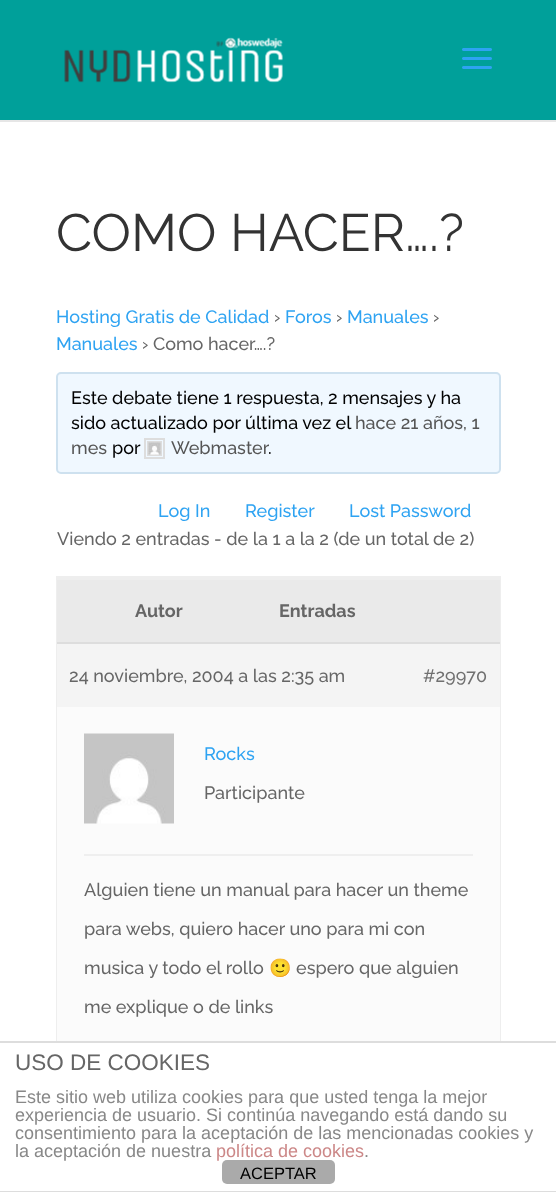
async function draw(canvas) {
	canvas.width = 556;
	canvas.height = 1192;
	const c = canvas.getContext('2d');
	c.miterLimit = 4;
	c.fontKerning = 'normal';
	async function loadImage(src) {
		const img = new Image();
		img.src = src;
		await img.decode();
		return img;
	}

	c.fillStyle = '#fff';
	c.fillRect(0, 0, 556, 1192);
	c.fillStyle = '#e6e6e6';
	c.beginPath();
	c.moveTo(0, 120);
	c.lineTo(0, 122);
	c.lineTo(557, 122);
	c.lineTo(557, 2);
	c.lineTo(556, 2);
	c.lineTo(556, 120);
	c.closePath();
	c.fill();
	c.fillStyle = '#00a09a';
	c.fillRect(0, 0, 556, 120);
	c.drawImage(await loadImage('img1.png'), 64, 37, 219, 46);
	c.drawImage(await loadImage('img2.png'), 462, 48, 30, 21);
	c.font = '52.5px Raleway';
	c.fillStyle = '#333';
	c.fillText('COMO HACER….?', 56, 251);
	c.font = '500 18px Raleway';
	c.fillStyle = '#2ea3f2';
	c.fillText('Hosting Gratis de Calidad', 56, 323);
	c.fillStyle = '#666';
	c.fillText('›', 274, 323);
	c.fillStyle = '#2ea3f2';
	c.fillText('Foros', 285, 323);
	c.fillStyle = '#666';
	c.fillText('›', 336, 323);
	c.fillStyle = '#2ea3f2';
	c.fillText('Manuales', 347, 323);
	c.fillStyle = '#666';
	c.fillText('›', 433, 323);
	c.fillStyle = '#2ea3f2';
	c.fillText('Manuales', 56, 350);
	c.fillStyle = '#666';
	c.fillText('› Como hacer….?', 142, 350);
	c.fillStyle = '#f0f8ff';
	c.beginPath();
	c.roundRect(57, 373, 443, 100, 4);
	c.fill();
	c.strokeStyle = '#cee1ef';
	c.lineWidth = 2;
	c.stroke();
	c.fillStyle = '#000';
	c.fillText('Este debate tiene 1 respuesta, 2 mensajes y ha', 71, 404);
	c.fillText('sido actualizado por última vez el', 71, 429);
	c.fillStyle = '#555';
	c.fillText('hace 21 años, 1', 355, 429);
	c.fillText('mes', 71, 454);
	c.fillStyle = '#000';
	c.fillText('por', 112, 454);
	c.strokeStyle = '#ddd';
	c.strokeRect(145, 439, 19, 19);
	c.strokeRect(148, 442, 13, 13);
	c.drawImage(await loadImage('img3.png'), 148, 442, 13, 13);
	c.fillStyle = '#555';
	c.fillText('Webmaster', 171, 454);
	c.fillStyle = '#000';
	c.fillText('.', 268, 454);
	c.fillStyle = '#2ea3f2';
	for (const [text, x, y] of [
		['Log In', 158, 517],
		['Register', 245, 517],
		['Lost Password', 349, 517],
	]) {
		c.fillText(text, x, y);
	}
	c.fillStyle = '#666';
	c.fillText('Viendo 2 entradas - de la 1 a la 2 (de un total de 2)', 57, 545);
	c.strokeStyle = '#eee';
	c.strokeRect(57, 577, 443, 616);
	c.fillStyle = '#eaeaea';
	c.fillRect(57, 580, 443, 62);
	c.fillStyle = '#eee';
	c.fillRect(57, 578, 443, 2);
	c.font = 'bold 18px Raleway';
	c.fillStyle = '#666';
	c.fillText('Autor', 135, 617);
	c.fillText('Entradas', 279, 617);
	c.fillStyle = '#f4f4f4';
	c.fillRect(57, 644, 443, 63);
	c.fillStyle = '#ddd';
	c.fillRect(57, 642, 443, 2);
	c.font = '500 18px Raleway';
	c.fillStyle = '#666';
	c.fillText('24 noviembre, 2004 a las 2:35 am', 69, 682);
	c.fillStyle = '#707070';
	c.fillText('#29970', 423, 682);
	c.fillStyle = '#fbfbfb';
	c.fillRect(57, 707, 443, 334);
	c.fillStyle = '#efefef';
	c.fillRect(84, 854, 389, 2);
	c.drawImage(await loadImage('img4.png'), 84, 733, 90, 91);
	c.fillStyle = '#2ea3f2';
	c.fillText('Rocks', 204, 760);
	c.fillStyle = '#666';
	for (const [text, x, y] of [
		['Participante', 204, 799],
		['Alguien tiene un manual para hacer un theme', 84, 896],
		['para webs, quiero hacer uno para mi con', 84, 935],
		['musica y todo el rollo', 84, 974],
	]) {
		c.fillText(text, x, y);
	}
	c.font = '18px Noto Color Emoji';
	c.fillText('🙂', 269, 974);
	c.font = '500 18px Raleway';
	c.fillText('espero que alguien', 296, 974);
	c.fillText('me explique o de links', 84, 1013);
	for (const [x, y, w, h, color] of [
		[56, 1043, 445, 148, '#fff'],
		[0, 1041, 556, 2, '#ddd'],
		[0, 1191, 556, 1, '#ddd'],
	]) {
		c.fillStyle = color;
		c.fillRect(x, y, w, h);
	}
	c.font = '22.5px Liberation Sans';
	c.fillStyle = '#666';
	c.fillText('USO DE COOKIES', 15, 1070);
	c.font = '18px Liberation Sans';
	c.fillStyle = '#888';
	for (const [text, x, y] of [
		['Este sitio web utiliza cookies para que usted tenga la mejor', 15, 1103],
		['experiencia de usuario. Si continúa navegando está dando su', 15, 1121],
		['consentimiento para la aceptación de las mencionadas cookies y', 15, 1139],
		['la aceptación de nuestra', 15, 1157],
	]) {
		c.fillText(text, x, y);
	}
	c.fillStyle = '#aaa';
	c.beginPath();
	c.roundRect(222, 1160, 113, 24, 5);
	c.fill();
	c.fillStyle = '#c88';
	c.fillText('política de cookies', 216, 1157);
	c.fillStyle = '#888';
	c.fillText('.', 364, 1157);
	c.font = '16.5px Liberation Sans';
	c.fillStyle = '#000';
	c.fillText('ACEPTAR', 240, 1179);
}

draw(document.querySelector('canvas'));
